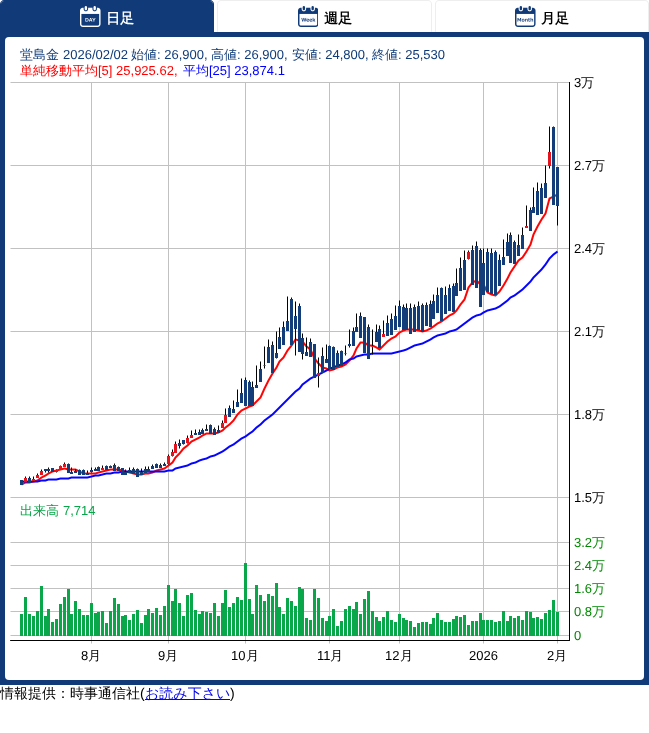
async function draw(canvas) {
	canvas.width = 649;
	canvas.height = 733;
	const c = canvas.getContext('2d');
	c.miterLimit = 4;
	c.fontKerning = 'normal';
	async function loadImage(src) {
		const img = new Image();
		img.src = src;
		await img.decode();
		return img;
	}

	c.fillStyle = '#fff';
	c.fillRect(0, 0, 649, 733);
	c.fillStyle = '#103b78';
	c.beginPath();
	c.roundRect(1, 1, 212, 31, [3, 3, 0, 0]);
	c.fill();
	c.beginPath();
	c.moveTo(4, 0);
	c.lineTo(210, 0);
	c.bezierCurveTo(212, 0, 214, 2, 214, 4);
	c.lineTo(214, 32);
	c.lineTo(0, 32);
	c.lineTo(0, 4);
	c.bezierCurveTo(0, 2, 2, 0, 4, 0);
	c.closePath();
	c.moveTo(4, 1);
	c.lineTo(210, 1);
	c.bezierCurveTo(212, 1, 213, 2, 213, 4);
	c.lineTo(213, 32);
	c.lineTo(1, 32);
	c.lineTo(1, 4);
	c.bezierCurveTo(1, 2, 2, 1, 4, 1);
	c.closePath();
	c.fill('evenodd');
	c.drawImage(await loadImage('img1.png'), 80, 6, 21, 21);
	c.font = 'bold 14px WenQuanYi Zen Hei';
	c.fillStyle = '#fff';
	c.fillText('日足', 106, 23);
	c.fillStyle = '#eee';
	c.beginPath();
	c.moveTo(221, 0);
	c.lineTo(428, 0);
	c.bezierCurveTo(430, 0, 432, 2, 432, 4);
	c.lineTo(432, 32);
	c.lineTo(217, 32);
	c.lineTo(217, 4);
	c.bezierCurveTo(217, 2, 219, 0, 221, 0);
	c.closePath();
	c.moveTo(221, 1);
	c.lineTo(428, 1);
	c.bezierCurveTo(430, 1, 431, 2, 431, 4);
	c.lineTo(431, 32);
	c.lineTo(218, 32);
	c.lineTo(218, 4);
	c.bezierCurveTo(218, 2, 219, 1, 221, 1);
	c.closePath();
	c.fill('evenodd');
	c.drawImage(await loadImage('img2.png'), 298, 6, 20, 21);
	c.fillStyle = '#000';
	c.fillText('週足', 324, 23);
	c.fillStyle = '#eee';
	c.beginPath();
	c.moveTo(439, 0);
	c.lineTo(645, 0);
	c.bezierCurveTo(647, 0, 649, 2, 649, 4);
	c.lineTo(649, 32);
	c.lineTo(435, 32);
	c.lineTo(435, 4);
	c.bezierCurveTo(435, 2, 437, 0, 439, 0);
	c.closePath();
	c.moveTo(439, 1);
	c.lineTo(645, 1);
	c.bezierCurveTo(647, 1, 648, 2, 648, 4);
	c.lineTo(648, 32);
	c.lineTo(436, 32);
	c.lineTo(436, 4);
	c.bezierCurveTo(436, 2, 437, 1, 439, 1);
	c.closePath();
	c.fill('evenodd');
	c.drawImage(await loadImage('img3.png'), 515, 6, 21, 21);
	c.fillStyle = '#000';
	c.fillText('月足', 541, 23);
	c.fillStyle = '#103b78';
	c.fillRect(0, 32, 649, 653);
	c.fillStyle = '#fff';
	c.beginPath();
	c.roundRect(5, 37, 639, 643, 4);
	c.fill();
	c.font = '500 13px WenQuanYi Zen Hei';
	c.fillStyle = '#103b78';
	c.fillText('堂島金', 20, 59);
	c.font = '13px Liberation Sans';
	c.fillText('2026/02/02', 63, 59);
	c.font = '500 13px WenQuanYi Zen Hei';
	c.fillText('始値', 131, 59);
	c.font = '13px Liberation Sans';
	c.fillText(': 26,900,', 157, 59);
	c.font = '500 13px WenQuanYi Zen Hei';
	c.fillText('高値', 211, 59);
	c.font = '13px Liberation Sans';
	c.fillText(': 26,900,', 237, 59);
	c.font = '500 13px WenQuanYi Zen Hei';
	c.fillText('安値', 292, 59);
	c.font = '13px Liberation Sans';
	c.fillText(': 24,800,', 318, 59);
	c.font = '500 13px WenQuanYi Zen Hei';
	c.fillText('終値', 372, 59);
	c.font = '13px Liberation Sans';
	c.fillText(': 25,530', 398, 59);
	c.font = '500 13px WenQuanYi Zen Hei';
	c.fillStyle = '#f00';
	c.fillText('単純移動平均', 20, 75);
	c.font = '13px Liberation Sans';
	c.fillText('[5] 25,925.62,', 98, 75);
	c.font = '500 13px WenQuanYi Zen Hei';
	c.fillStyle = '#00f';
	c.fillText('平均', 183, 75);
	c.font = '13px Liberation Sans';
	c.fillText('[25] 23,874.1', 209, 75);
	c.drawImage(await loadImage('img4.png'), 10, 82, 560, 562);
	c.fillStyle = '#000';
	c.fillText('3', 574, 87);
	c.font = '500 13px WenQuanYi Zen Hei';
	c.fillText('万', 581, 87);
	c.font = '13px Liberation Sans';
	c.fillText('2.7', 574, 170);
	c.font = '500 13px WenQuanYi Zen Hei';
	c.fillText('万', 592, 170);
	c.font = '13px Liberation Sans';
	c.fillText('2.4', 574, 253);
	c.font = '500 13px WenQuanYi Zen Hei';
	c.fillText('万', 592, 253);
	c.font = '13px Liberation Sans';
	c.fillText('2.1', 574, 336);
	c.font = '500 13px WenQuanYi Zen Hei';
	c.fillText('万', 592, 336);
	c.font = '13px Liberation Sans';
	c.fillText('1.8', 574, 419);
	c.font = '500 13px WenQuanYi Zen Hei';
	c.fillText('万', 592, 419);
	c.font = '13px Liberation Sans';
	c.fillText('1.5', 574, 502);
	c.font = '500 13px WenQuanYi Zen Hei';
	c.fillText('万', 592, 502);
	c.fillStyle = '#08a648';
	c.fillText('出来高', 20, 515);
	c.font = '13px Liberation Sans';
	c.fillText('7,714', 63, 515);
	c.fillStyle = '#080';
	c.fillText('3.2', 574, 547);
	c.font = '500 13px WenQuanYi Zen Hei';
	c.fillText('万', 592, 547);
	c.font = '13px Liberation Sans';
	c.fillText('2.4', 574, 570);
	c.font = '500 13px WenQuanYi Zen Hei';
	c.fillText('万', 592, 570);
	c.font = '13px Liberation Sans';
	c.fillText('1.6', 574, 593);
	c.font = '500 13px WenQuanYi Zen Hei';
	c.fillText('万', 592, 593);
	c.font = '13px Liberation Sans';
	c.fillText('0.8', 574, 616);
	c.font = '500 13px WenQuanYi Zen Hei';
	c.fillText('万', 592, 616);
	c.font = '13px Liberation Sans';
	c.fillText('0', 574, 640);
	c.fillStyle = '#000';
	c.fillText('8', 81, 660);
	c.font = '500 13px WenQuanYi Zen Hei';
	c.fillText('月', 88, 660);
	c.font = '13px Liberation Sans';
	c.fillText('9', 158, 660);
	c.font = '500 13px WenQuanYi Zen Hei';
	c.fillText('月', 165, 660);
	c.font = '13px Liberation Sans';
	c.fillText('10', 231, 660);
	c.font = '500 13px WenQuanYi Zen Hei';
	c.fillText('月', 246, 660);
	c.font = '13px Liberation Sans';
	c.fillText('11', 317, 660);
	c.font = '500 13px WenQuanYi Zen Hei';
	c.fillText('月', 330, 660);
	c.font = '13px Liberation Sans';
	c.fillText('12', 385, 660);
	c.font = '500 13px WenQuanYi Zen Hei';
	c.fillText('月', 400, 660);
	c.font = '13px Liberation Sans';
	c.fillText('2026', 469, 660);
	c.fillText('2', 547, 660);
	c.font = '500 13px WenQuanYi Zen Hei';
	c.fillText('月', 554, 660);
	c.font = '500 14px WenQuanYi Zen Hei';
	c.fillText('情報提供：時事通信社', 0, 698);
	c.font = '14px Liberation Sans';
	c.fillText('(', 140, 698);
	c.fillStyle = '#00e';
	c.fillRect(145, 699, 85, 1);
	c.font = '500 14px WenQuanYi Zen Hei';
	c.fillText('お読み下さい', 145, 698);
	c.font = '14px Liberation Sans';
	c.fillStyle = '#000';
	c.fillText(')', 230, 698);
}

draw(document.querySelector('canvas'));
